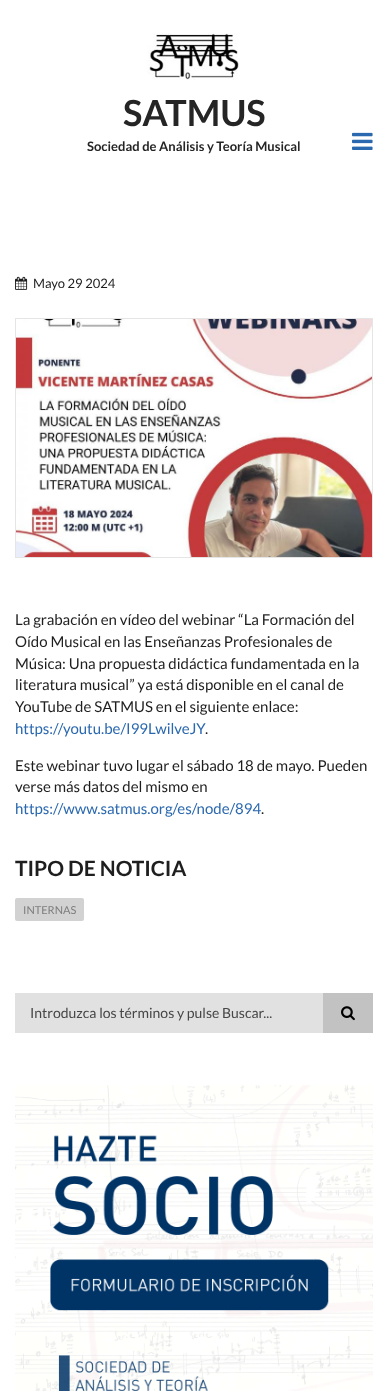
async function draw(canvas) {
	canvas.width = 388;
	canvas.height = 1391;
	const c = canvas.getContext('2d');
	c.miterLimit = 4;
	c.fontKerning = 'normal';
	async function loadImage(src) {
		const img = new Image();
		img.src = src;
		await img.decode();
		return img;
	}

	c.fillStyle = '#fff';
	c.fillRect(0, 0, 388, 1391);
	c.drawImage(await loadImage('img1.png'), 147, 33, 93, 47);
	c.font = 'bold 36px Lato';
	c.fillStyle = '#252525';
	c.fillText('SATMUS', 123, 126);
	c.font = 'bold 13px Lato';
	c.fillText('Sociedad de Análisis y Teoría Musical', 87, 151);
	c.drawImage(await loadImage('img2.png'), 352, 132, 21, 18);
	c.drawImage(await loadImage('img3.png'), 15, 276, 13, 14);
	c.font = '13px Lato';
	c.fillStyle = '#1e1e1e';
	c.fillText('Mayo 29 2024', 33, 288);
	c.strokeStyle = '#e5e5e5';
	c.strokeRect(15.5, 318.5, 357, 239);
	c.drawImage(await loadImage('img4.png'), 16, 319, 356, 238);
	c.font = '15px Lato';
	for (const [text, x, y] of [
		['La grabación en vídeo del webinar “La Formación del', 15, 625],
		['Oído Musical en las Enseñanzas Profesionales de', 15, 647],
		['Música: Una propuesta didáctica fundamentada en la', 15, 669],
		['literatura musical” ya está disponible en el canal de', 15, 690],
		['YouTube de SATMUS en el siguiente enlace:', 15, 712],
	]) {
		c.fillText(text, x, y);
	}
	c.fillStyle = '#2a68af';
	c.fillText('https://youtu.be/I99LwilveJY', 15, 734);
	c.fillStyle = '#1e1e1e';
	for (const [text, x, y] of [
		['.', 205, 734],
		['Este webinar tuvo lugar el sábado 18 de mayo. Pueden', 15, 771],
		['verse más datos del mismo en', 15, 792],
	]) {
		c.fillText(text, x, y);
	}
	c.fillStyle = '#2a68af';
	c.fillText('https://www.satmus.org/es/node/894', 15, 814);
	c.fillStyle = '#1e1e1e';
	c.fillText('.', 261, 814);
	c.font = 'bold 21px Lato';
	c.fillText('TIPO DE NOTICIA', 15, 876);
	c.fillStyle = '#d2d2d2';
	c.beginPath();
	c.roundRect(15, 898, 69, 23, 2);
	c.fill();
	c.font = '11px Lato';
	c.fillStyle = '#7d7d7d';
	c.fillText('INTERNAS', 23, 914);
	c.fillStyle = '#e1e1e1';
	c.fillRect(15, 993, 308, 40);
	c.font = '14px Lato';
	c.fillStyle = '#464646';
	c.fillText('Introduzca los términos y pulse Buscar...', 30, 1018);
	c.fillStyle = '#c2c2c2';
	c.fillRect(323, 993, 50, 40);
	c.drawImage(await loadImage('img5.png'), 341, 1006, 14, 15);
	c.drawImage(await loadImage('img6.png'), 15, 1085, 358, 306);
}

draw(document.querySelector('canvas'));
